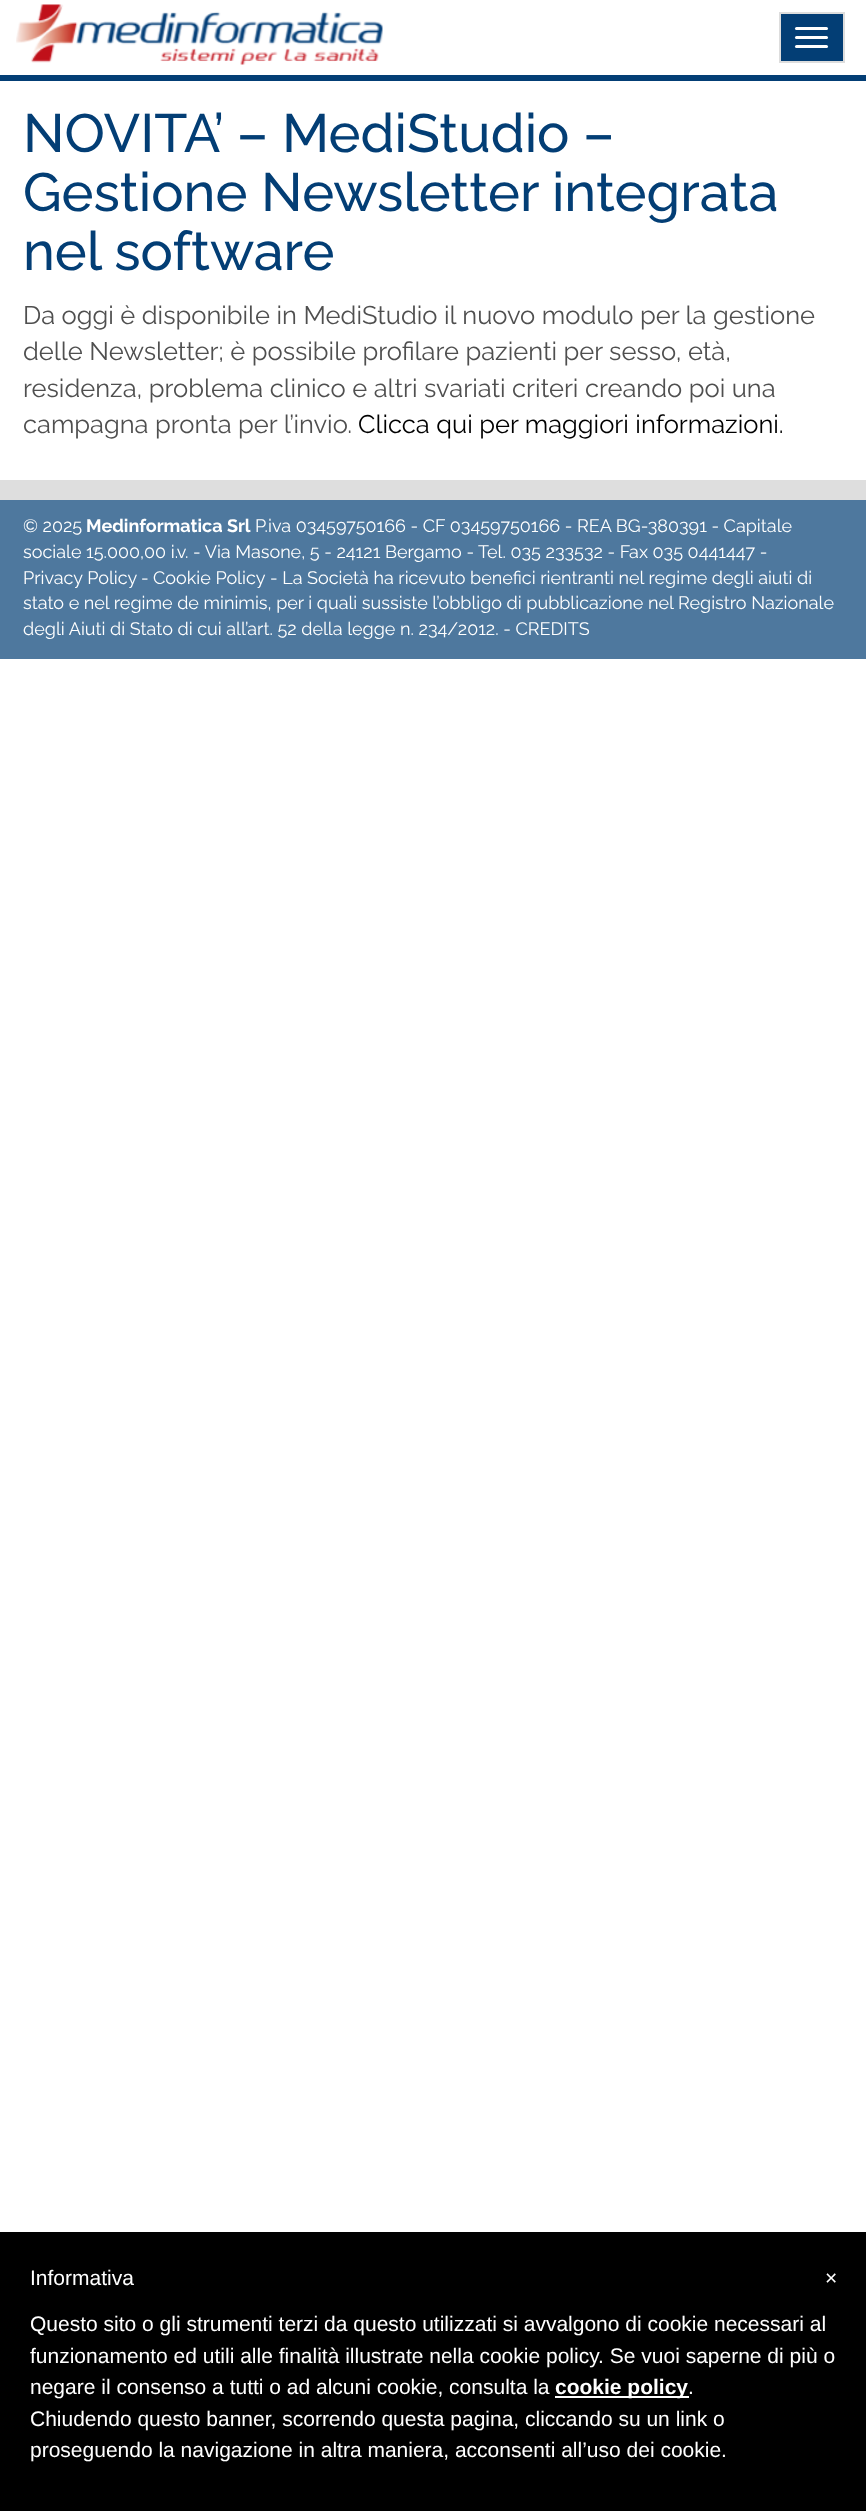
async function draw(canvas) {
	canvas.width = 866;
	canvas.height = 2511;
	const c = canvas.getContext('2d');
	c.miterLimit = 4;
	c.fontKerning = 'normal';
	async function loadImage(src) {
		const img = new Image();
		img.src = src;
		await img.decode();
		return img;
	}

	c.fillStyle = '#fff';
	c.fillRect(0, 0, 866, 2511);
	c.fillStyle = '#033e75';
	c.fillRect(0, 75, 866, 6);
	c.drawImage(await loadImage('img1.png'), 16, 4, 367, 61);
	c.beginPath();
	c.rect(780, 13, 64, 49);
	c.fill();
	c.strokeStyle = '#ddd';
	c.lineWidth = 2;
	c.stroke();
	c.fillStyle = '#fff';
	c.beginPath();
	c.roundRect(795, 27, 33, 3, 1.5);
	c.fill();
	c.beginPath();
	c.roundRect(795, 36, 33, 3, 1.5);
	c.fill();
	c.beginPath();
	c.roundRect(795, 45, 33, 3, 1.5);
	c.fill();
	c.font = '500 54px Raleway';
	c.fillStyle = '#033e75';
	for (const [text, x, y] of [
		['NOVITA’ – MediStudio –', 23, 152],
		['Gestione Newsletter integrata', 23, 211],
		['nel software', 23, 270],
	]) {
		c.fillText(text, x, y);
	}
	c.font = '25.5px Raleway';
	c.fillStyle = '#4f4f4f';
	for (const [text, x, y] of [
		['Da oggi è disponibile in MediStudio il nuovo modulo per la gestione', 23, 324],
		['delle Newsletter; è possibile profilare pazienti per sesso, età,', 23, 360],
		['residenza, problema clinico e altri svariati criteri creando poi una', 23, 397],
		['campagna pronta per l’invio.', 23, 433],
	]) {
		c.fillText(text, x, y);
	}
	c.fillStyle = '#000';
	c.fillText('Clicca qui per maggiori informazioni.', 358, 433);
	c.fillStyle = '#4e789e';
	c.fillRect(0, 500, 866, 159);
	c.fillStyle = '#dedede';
	c.fillRect(0, 480, 866, 20);
	c.font = '18px Raleway';
	c.fillStyle = '#fff';
	c.fillText('© 2025', 23, 532);
	c.font = 'bold 18px Raleway';
	c.fillText('Medinformatica Srl', 86, 532);
	c.font = '18px Raleway';
	for (const [text, x, y] of [
		['P.iva 03459750166 - CF 03459750166 - REA BG-380391 - Capitale', 255, 532],
		['sociale 15.000,00 i.v. - Via Masone, 5 - 24121 Bergamo - Tel. 035 233532 - Fax 035 0441447 -', 23, 558],
		['Privacy Policy', 23, 584],
		['-', 141, 584],
		['Cookie Policy', 153, 584],
		['- La Società ha ricevuto benefici rientranti nel regime degli aiuti di', 270, 584],
		['stato e nel regime de minimis, per i quali sussiste l’obbligo di pubblicazione nel Registro Nazionale', 23, 609],
		['degli Aiuti di Stato di cui all’art. 52 della legge n. 234/2012. - CREDITS', 23, 635],
	]) {
		c.fillText(text, x, y);
	}
	c.fillStyle = '#000';
	c.fillRect(0, 2232, 866, 279);
	c.font = '21px Liberation Sans';
	c.fillStyle = '#fff';
	for (const [text, x, y] of [
		['Informativa', 30, 2285],
		['Questo sito o gli strumenti terzi da questo utilizzati si avvalgono di cookie necessari al', 30, 2331],
		['funzionamento ed utili alle finalità illustrate nella cookie policy. Se vuoi saperne di più o', 30, 2363],
		['negare il consenso a tutti o ad alcuni cookie, consulta la', 30, 2394],
	]) {
		c.fillText(text, x, y);
	}
	c.fillRect(555, 2396, 134, 2);
	c.font = 'bold 21px Liberation Sans';
	c.fillText('cookie policy', 555, 2394);
	c.font = '21px Liberation Sans';
	for (const [text, x, y] of [
		['.', 688, 2394],
		['Chiudendo questo banner, scorrendo questa pagina, cliccando su un link o', 30, 2426],
		['proseguendo la navigazione in altra maniera, acconsenti all’uso dei cookie.', 30, 2457],
		['×', 825, 2285],
	]) {
		c.fillText(text, x, y);
	}
}

draw(document.querySelector('canvas'));
